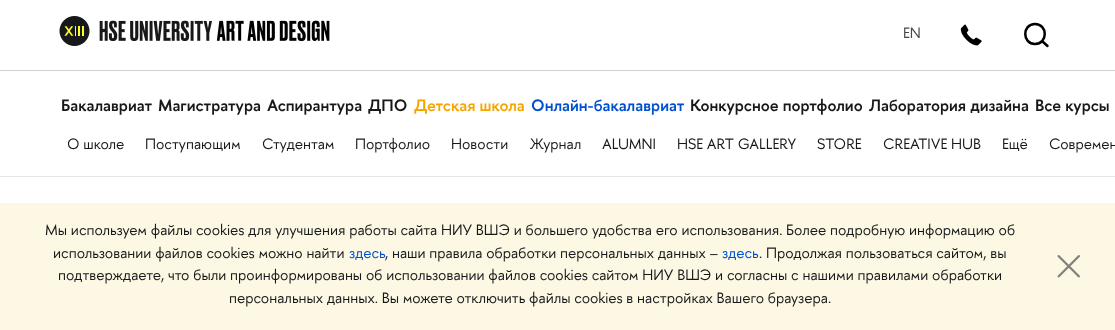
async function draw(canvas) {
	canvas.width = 1115;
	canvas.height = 330;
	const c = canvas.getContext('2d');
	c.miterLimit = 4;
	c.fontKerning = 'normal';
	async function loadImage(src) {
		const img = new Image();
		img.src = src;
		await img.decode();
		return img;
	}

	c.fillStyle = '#fff';
	c.fillRect(0, 0, 1115, 330);
	c.fillStyle = '#d1d1d1';
	c.fillRect(0, 70, 1115, 1);
	c.drawImage(await loadImage('img1.png'), 59, 16, 271, 30);
	c.font = '15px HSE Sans';
	c.fillStyle = '#454648';
	c.fillText('EN', 903, 38);
	c.drawImage(await loadImage('img2.png'), 960, 24, 22, 22);
	c.beginPath();
	c.moveTo(1035, 24);
	c.bezierCurveTo(1022, 24, 1022, 44, 1035, 44);
	c.bezierCurveTo(1048, 44, 1048, 24, 1035, 24);
	c.closePath();
	c.moveTo(1047.5, 46);
	c.lineTo(1042, 41);
	c.strokeStyle = '#000';
	c.lineWidth = 2.5;
	c.lineCap = 'round';
	c.lineJoin = 'round';
	c.stroke();
	c.fillStyle = '#e6e6e6';
	c.fillRect(0, 176, 1115, 1);
	c.font = '600 16.5px HSE Sans';
	c.fillStyle = '#17181a';
	for (const [text, x, y] of [
		['Бакалавриат', 61, 111],
		['Магистратура', 158, 111],
		['Аспирантура', 267, 111],
		['ДПО', 368, 111],
	]) {
		c.fillText(text, x, y);
	}
	c.fillStyle = '#f7a600';
	c.fillText('Детская школа', 414, 111);
	c.fillStyle = '#0050cf';
	c.fillText('Онлайн-бакалавриат', 531, 111);
	c.fillStyle = '#17181a';
	for (const [text, x, y] of [
		['Конкурсное портфолио', 690, 111],
		['Лаборатория дизайна', 869, 111],
		['Все курсы', 1035, 111],
	]) {
		c.fillText(text, x, y);
	}
	c.font = '15px HSE Sans';
	for (const [text, x, y] of [
		['О школе', 67, 149],
		['Поступающим', 145, 149],
		['Студентам', 262, 149],
		['Портфолио', 355, 149],
		['Новости', 451, 149],
		['Журнал', 530, 149],
		['ALUMNI', 602, 149],
		['HSE ART GALLERY', 677, 149],
		['STORE', 817, 149],
		['CREATIVE HUB', 883, 149],
		['Ещё', 1002, 149],
		['Современ', 1049, 149],
	]) {
		c.fillText(text, x, y);
	}
	c.fillStyle = '#fcf8e3';
	c.fillRect(0, 203, 1115, 127);
	c.fillStyle = '#17181a';
	c.fillText('Мы используем файлы cookies для улучшения работы сайта НИУ ВШЭ и большего удобства его использования. Более подробную информацию об', 45, 235);
	c.fillText('использовании файлов cookies можно найти', 53, 258);
	c.fillStyle = '#0050cf';
	c.fillText('здесь', 349, 258);
	c.fillStyle = '#17181a';
	c.fillText(', наши правила обработки персональных данных –', 385, 258);
	c.fillStyle = '#0050cf';
	c.fillText('здесь', 722, 258);
	c.fillStyle = '#17181a';
	for (const [text, x, y] of [
		['. Продолжая пользоваться сайтом, вы', 759, 258],
		['подтверждаете, что были проинформированы об использовании файлов cookies сайтом НИУ ВШЭ и согласны с нашими правилами обработки', 58, 280],
		['персональных данных. Вы можете отключить файлы cookies в настройках Вашего браузера.', 229, 303],
	]) {
		c.fillText(text, x, y);
	}
	c.drawImage(await loadImage('img3.png'), 1057, 255, 23, 23);
}

draw(document.querySelector('canvas'));
